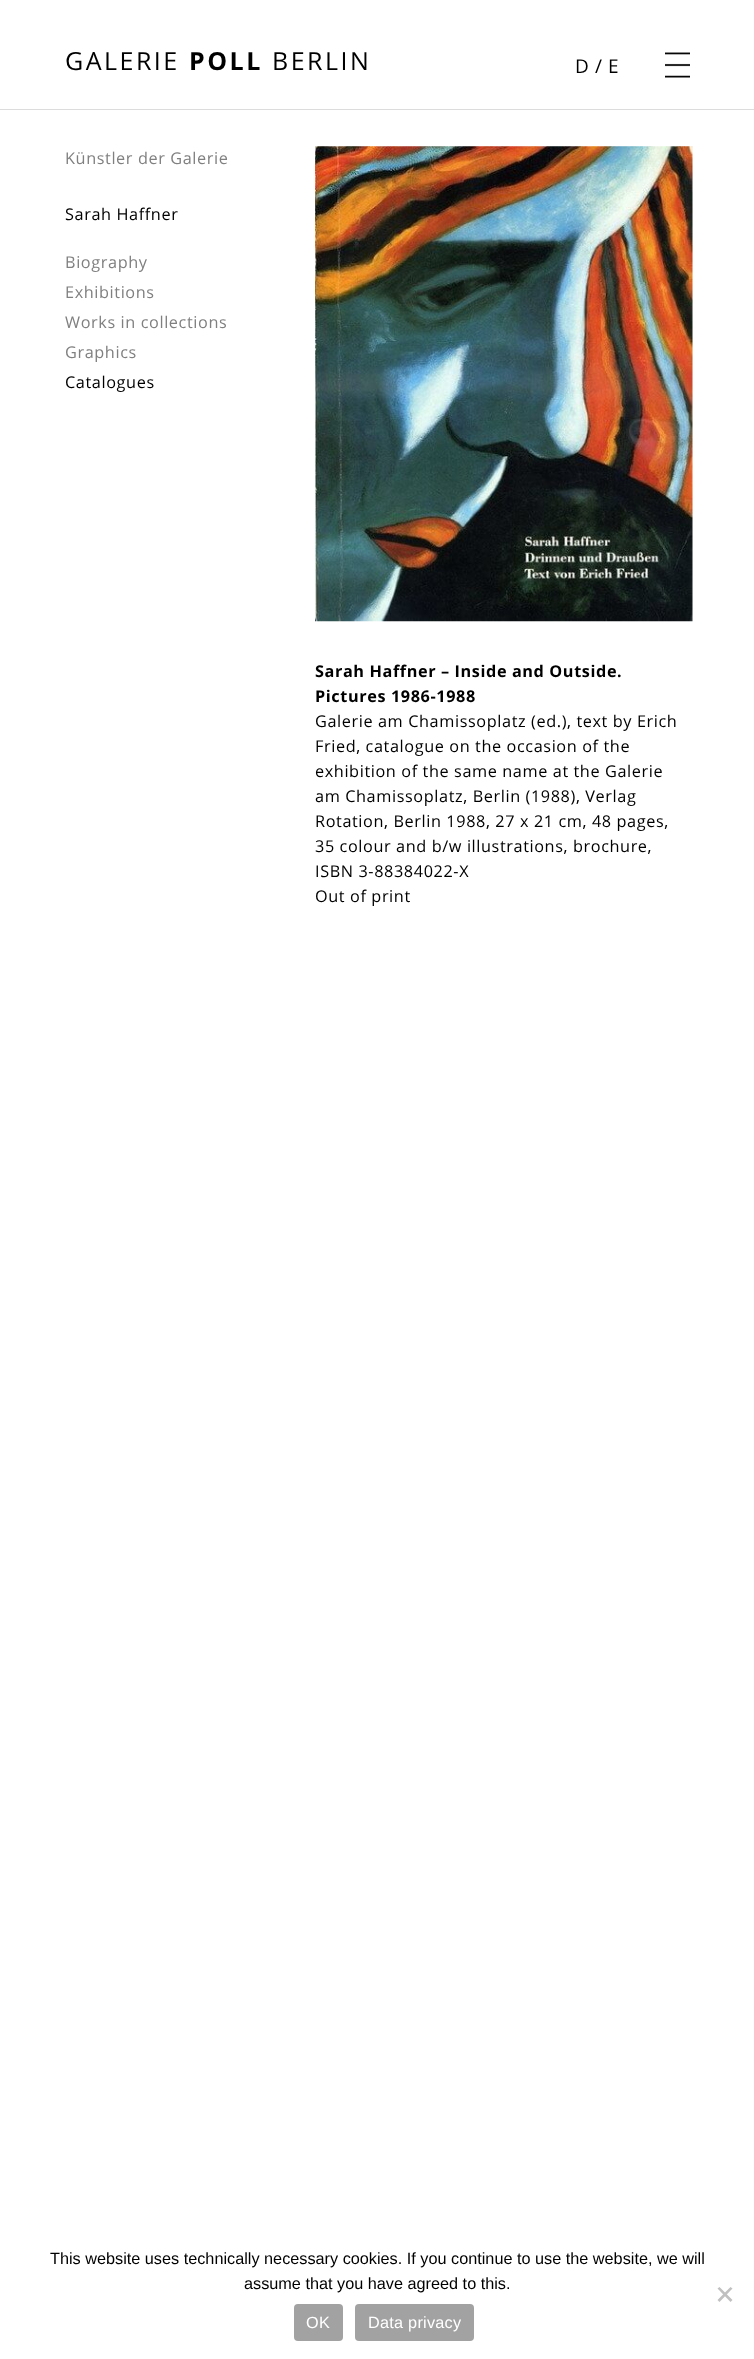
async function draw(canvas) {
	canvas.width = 754;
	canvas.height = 2359;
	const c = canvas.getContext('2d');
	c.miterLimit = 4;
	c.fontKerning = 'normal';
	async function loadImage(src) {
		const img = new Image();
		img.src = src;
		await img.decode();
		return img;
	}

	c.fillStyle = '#fff';
	c.fillRect(0, 0, 754, 2359);
	c.letterSpacing = '2.5px';
	c.font = '25px Open Sans';
	c.fillStyle = '#000';
	c.fillText('GALERIE', 65, 70);
	c.font = 'bold 25px Open Sans';
	c.fillText('POLL', 189, 70);
	c.font = '25px Open Sans';
	c.fillText('BERLIN', 272, 70);
	c.fillStyle = '#dcdcdc';
	c.fillRect(0, 109, 754, 1);
	c.letterSpacing = '0.6px';
	c.font = '19px Open Sans';
	c.fillStyle = '#000';
	c.fillText('D / E', 575, 73);
	c.drawImage(await loadImage('img1.png'), 665, 52, 25, 26);
	c.font = '16.25px Open Sans';
	c.fillStyle = '#808080';
	c.fillText('Künstler der Galerie', 65, 164);
	c.fillStyle = '#000';
	c.fillText('Sarah Haffner', 65, 220);
	c.fillStyle = '#808080';
	for (const [text, x, y] of [
		['Biography', 65, 268],
		['Exhibitions', 65, 298],
		['Works in collections', 65, 328],
		['Graphics', 65, 358],
	]) {
		c.fillText(text, x, y);
	}
	c.fillStyle = '#000';
	c.fillText('Catalogues', 65, 388);
	c.drawImage(await loadImage('img2.png'), 315, 146, 378, 476);
	c.font = 'bold 16.25px Open Sans';
	c.fillText('Sarah Haffner – Inside and Outside.', 315, 677);
	c.fillText('Pictures 1986-1988', 315, 702);
	c.font = '16.25px Open Sans';
	for (const [text, x, y] of [
		['Galerie am Chamissoplatz (ed.), text by Erich', 315, 727],
		['Fried, catalogue on the occasion of the', 315, 752],
		['exhibition of the same name at the Galerie', 315, 777],
		['am Chamissoplatz, Berlin (1988), Verlag', 315, 802],
		['Rotation, Berlin 1988, 27 x 21 cm, 48 pages,', 315, 827],
		['35 colour and b/w illustrations, brochure,', 315, 852],
		['ISBN 3-88384022-X', 315, 877],
		['Out of print', 315, 902],
	]) {
		c.fillText(text, x, y);
	}
	c.letterSpacing = '0px';
	c.font = '16.25px Liberation Sans';
	c.fillText('This website uses technically necessary cookies. If you continue to use the website, we will', 50, 2264);
	c.fillText('assume that you have agreed to this.', 244, 2289);
	c.fillStyle = '#c0c0c0';
	c.beginPath();
	c.moveTo(730.5, 2287);
	c.lineTo(732.5, 2288.5);
	c.lineTo(719.5, 2302);
	c.lineTo(717.5, 2300);
	c.closePath();
	c.fill();
	c.beginPath();
	c.moveTo(717.5, 2288.5);
	c.lineTo(719.5, 2287);
	c.lineTo(732.5, 2300);
	c.lineTo(730.5, 2302);
	c.closePath();
	c.fill();
	c.fillStyle = '#a2a2a2';
	c.beginPath();
	c.roundRect(294, 2304, 49, 37, 4);
	c.fill();
	c.letterSpacing = '0.25px';
	c.fillStyle = '#fff';
	c.fillText('OK', 306, 2328);
	c.fillStyle = '#a2a2a2';
	c.beginPath();
	c.roundRect(355, 2304, 119, 37, 4);
	c.fill();
	c.fillStyle = '#fff';
	c.fillText('Data privacy', 368, 2328);
}

draw(document.querySelector('canvas'));
